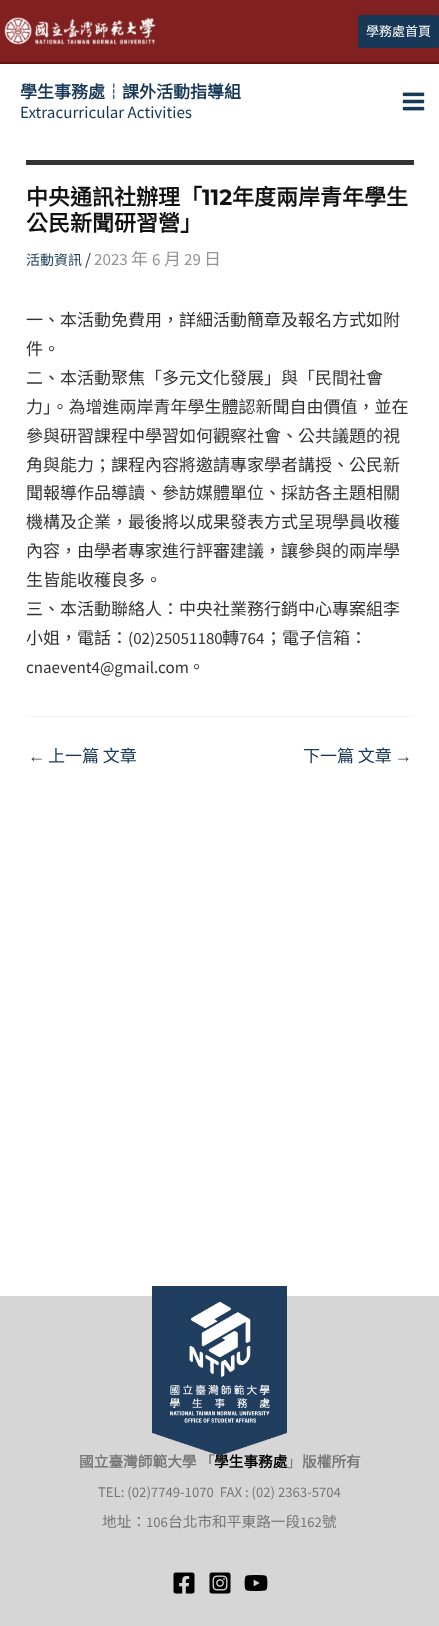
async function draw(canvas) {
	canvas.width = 439;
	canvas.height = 1626;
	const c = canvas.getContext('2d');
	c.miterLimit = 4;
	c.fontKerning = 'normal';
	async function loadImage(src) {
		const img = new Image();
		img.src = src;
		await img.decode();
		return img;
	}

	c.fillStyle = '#fff';
	c.fillRect(0, 0, 439, 1626);
	c.fillStyle = '#802020';
	c.fillRect(0, 0, 439, 62);
	c.fillStyle = '#651111';
	c.fillRect(0, 62, 439, 2);
	c.drawImage(await loadImage('img1.png'), 4, 17, 152, 28);
	c.fillStyle = '#173857';
	c.beginPath();
	c.roundRect(358, 15, 81, 33, 2);
	c.fill();
	c.font = '13px Noto Sans CJK TC';
	c.fillStyle = '#fff';
	c.fillText('學務處首頁', 366, 36);
	c.font = 'bold 17px Noto Sans CJK TC';
	c.fillStyle = '#173857';
	c.fillText('學生事務處┆課外活動指導組', 20, 98);
	c.font = '17px Source Sans Pro';
	c.fillText('Extracurricular Activities', 20, 118);
	c.drawImage(await loadImage('img2.png'), 402, 92, 23, 19);
	c.fillStyle = '#333';
	c.fillRect(26, 160, 388, 5);
	c.font = 'bold 22px Noto Sans CJK TC';
	c.fillStyle = '#111';
	c.fillText('中央通訊社辦理「', 26, 205);
	c.font = '100 22px Montserrat';
	c.fillText('112', 202, 205);
	c.font = 'bold 22px Noto Sans CJK TC';
	c.fillText('年度兩岸青年學生', 232, 205);
	c.fillText('公民新聞研習營」', 26, 231);
	c.font = '14px Noto Sans CJK TC';
	c.fillStyle = '#173857';
	c.fillText('活動資訊', 26, 265);
	c.font = '17px Source Sans Pro';
	c.fillText('/', 85, 265);
	c.fillStyle = '#949494';
	c.fillText('2023', 94, 265);
	c.font = '17px Noto Sans CJK TC';
	c.fillText('年', 131, 265);
	c.font = '17px Source Sans Pro';
	c.fillText('6', 152, 265);
	c.font = '17px Noto Sans CJK TC';
	c.fillText('月', 164, 265);
	c.font = '17px Source Sans Pro';
	c.fillText('29', 184, 265);
	c.font = '17px Noto Sans CJK TC';
	c.fillText('日', 204, 265);
	c.fillStyle = '#333';
	for (const [text, x, y] of [
		['一、本活動免費用，詳細活動簡章及報名方式如附', 26, 326],
		['件。', 26, 355],
		['二、本活動聚焦「多元文化發展」與「民間社會', 26, 384],
		['力」。為增進兩岸青年學生體認新聞自由價值，並在', 26, 413],
		['參與研習課程中學習如何觀察社會、公共議題的視', 26, 442],
		['角與能力；課程內容將邀請專家學者講授、公民新', 26, 471],
		['聞報導作品導讀、參訪媒體單位、採訪各主題相關', 26, 499],
		['機構及企業，最後將以成果發表方式呈現學員收穫', 26, 528],
		['內容，由學者專家進行評審建議，讓參與的兩岸學', 26, 557],
		['生皆能收穫良多。', 26, 586],
		['三、本活動聯絡人：中央社業務行銷中心專案組李', 26, 615],
		['小姐，電話：', 26, 644],
	]) {
		c.fillText(text, x, y);
	}
	c.font = '17px Source Sans Pro';
	c.fillText('(02)25051180', 128, 644);
	c.font = '17px Noto Sans CJK TC';
	c.fillText('轉', 222, 644);
	c.font = '17px Source Sans Pro';
	c.fillText('764', 239, 644);
	c.font = '17px Noto Sans CJK TC';
	c.fillText('；電子信箱：', 265, 644);
	c.font = '17px Source Sans Pro';
	c.fillText('cnaevent4@gmail.com', 26, 673);
	c.font = '17px Noto Sans CJK TC';
	c.fillText('。', 188, 673);
	c.fillStyle = '#f2f5f7';
	c.fillRect(26, 716, 388, 1);
	c.font = '17px Liberation Sans';
	c.fillStyle = '#173857';
	c.fillText('←', 28, 762);
	c.font = '17px Noto Sans CJK TC';
	c.fillText('上一篇 文章', 48, 762);
	c.fillText('下一篇 文章', 303, 762);
	c.font = '17px Liberation Sans';
	c.fillText('→', 395, 762);
	c.fillStyle = '#d6d6d6';
	c.fillRect(0, 1296, 439, 330);
	c.font = 'bold 14.7px Noto Sans CJK TC';
	c.fillStyle = '#777';
	c.fillText('國立臺灣師範大學 「', 79, 1467);
	c.fillStyle = '#000';
	c.fillText('學生事務處', 214, 1467);
	c.drawImage(await loadImage('img3.png'), 152, 1286, 135, 170);
	c.font = '14.7px Noto Sans CJK TC';
	c.fillStyle = '#777';
	c.fillText('」', 287, 1467);
	c.font = 'bold 14.7px Noto Sans CJK TC';
	c.fillText('版權所有', 302, 1467);
	c.font = '14.7px Source Sans Pro';
	c.fillText('TEL: (02)7749-1070  FAX : (02) 2363-5704', 98, 1497);
	c.font = '14.7px Noto Sans CJK TC';
	c.fillText('地址：', 102, 1527);
	c.font = '14.7px Source Sans Pro';
	c.fillText('106', 146, 1527);
	c.font = '14.7px Noto Sans CJK TC';
	c.fillText('台北市和平東路一段', 168, 1527);
	c.font = '14.7px Source Sans Pro';
	c.fillText('162', 300, 1527);
	c.font = '14.7px Noto Sans CJK TC';
	c.fillText('號', 322, 1527);
	c.drawImage(await loadImage('img4.png'), 173, 1572, 22, 22);
	c.drawImage(await loadImage('img5.png'), 209, 1572, 22, 22);
	c.drawImage(await loadImage('img6.png'), 244, 1575, 24, 16);
}

draw(document.querySelector('canvas'));
